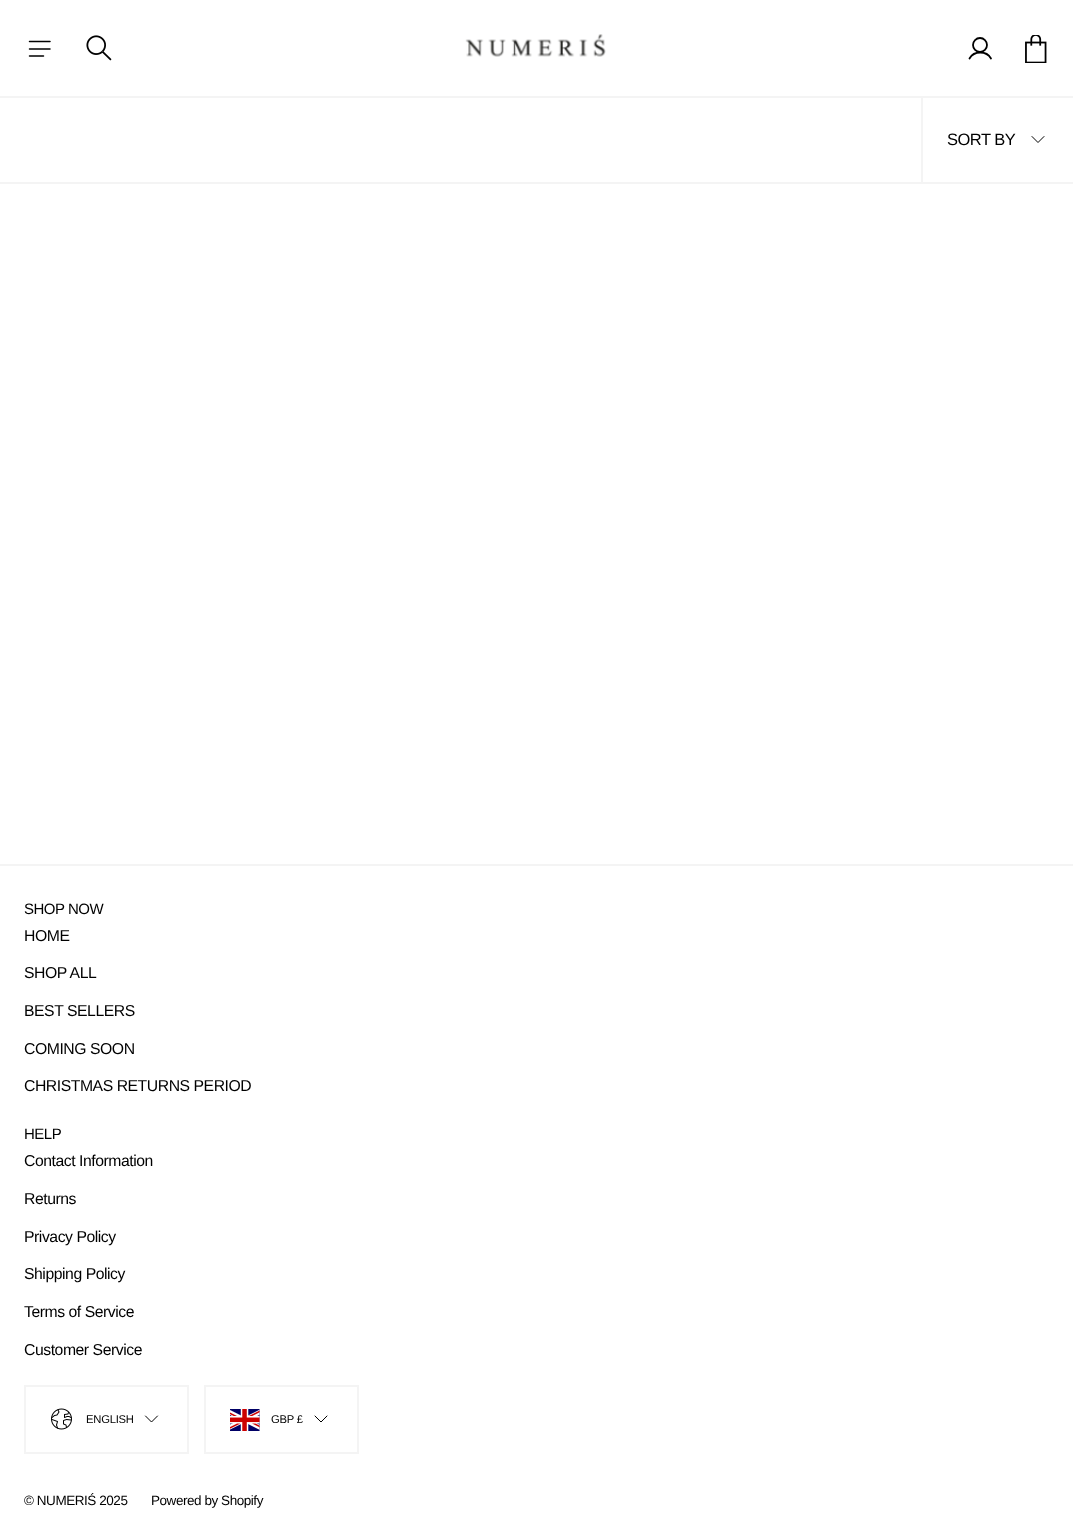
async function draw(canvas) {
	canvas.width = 1073;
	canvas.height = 1525;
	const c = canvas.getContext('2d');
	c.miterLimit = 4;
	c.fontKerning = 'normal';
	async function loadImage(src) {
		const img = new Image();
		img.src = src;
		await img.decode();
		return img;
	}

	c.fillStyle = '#fff';
	c.fillRect(0, 0, 1073, 1525);
	c.beginPath();
	c.moveTo(50, 49);
	c.lineTo(29.5, 49);
	c.moveTo(43.5, 56);
	c.lineTo(29.5, 56);
	c.moveTo(50, 41.5);
	c.lineTo(29.5, 41.5);
	c.strokeStyle = '#000';
	c.lineWidth = 1.5;
	c.lineCap = 'round';
	c.lineJoin = 'round';
	c.stroke();
	c.drawImage(await loadImage('img1.png'), 86, 35, 26, 26);
	c.drawImage(await loadImage('img2.png'), 465, 34, 141, 23);
	c.beginPath();
	c.arc(980, 45, 7, 0, 2 * Math.PI);
	c.lineWidth = 1.8;
	c.stroke();
	c.beginPath();
	c.moveTo(969.5, 58.5);
	c.bezierCurveTo(974, 50.5, 986.5, 50.5, 991, 58.5);
	c.stroke();
	c.drawImage(await loadImage('img3.png'), 1025, 35, 22, 28);
	for (const [x, y, w, h, color] of [
		[0, 96, 1073, 2, '#f4f4f4'],
		[0, 182, 1073, 2, '#f4f4f4'],
		[921, 98, 2, 84, '#f4f4f4'],
	]) {
		c.fillStyle = color;
		c.fillRect(x, y, w, h);
	}
	c.letterSpacing = '-0.5px';
	c.font = '16.5px Liberation Sans';
	c.fillStyle = '#000';
	c.fillText('SORT BY', 947, 145);
	c.beginPath();
	c.moveTo(1032, 136.5);
	c.lineTo(1038, 142.5);
	c.lineTo(1044, 136.5);
	c.lineWidth = 1;
	c.stroke();
	c.fillStyle = '#f4f4f4';
	c.fillRect(0, 864, 1073, 2);
	c.font = '15px Liberation Sans';
	c.fillStyle = '#000';
	c.fillText('SHOP NOW', 24, 914);
	c.letterSpacing = '-0.45px';
	c.font = '15.75px Liberation Sans';
	for (const [text, x, y] of [
		['HOME', 24, 941],
		['SHOP ALL', 24, 978],
		['BEST SELLERS', 24, 1016],
		['COMING SOON', 24, 1054],
		['CHRISTMAS RETURNS PERIOD', 24, 1091],
	]) {
		c.fillText(text, x, y);
	}
	c.letterSpacing = '-0.5px';
	c.font = '15px Liberation Sans';
	c.fillText('HELP', 24, 1139);
	c.letterSpacing = '-0.45px';
	c.font = '15.75px Liberation Sans';
	for (const [text, x, y] of [
		['Contact Information', 24, 1166],
		['Returns', 24, 1204],
		['Privacy Policy', 24, 1242],
		['Shipping Policy', 24, 1279],
		['Terms of Service', 24, 1317],
		['Customer Service', 24, 1355],
	]) {
		c.fillText(text, x, y);
	}
	c.strokeStyle = '#f4f4f4';
	c.lineWidth = 2;
	c.lineJoin = 'miter';
	c.strokeRect(25, 1386, 163, 67);
	c.drawImage(await loadImage('img4.png'), 51, 1408, 21, 22);
	c.letterSpacing = '-0.25px';
	c.font = '11.25px Liberation Sans';
	c.fillText('ENGLISH', 86, 1423);
	c.beginPath();
	c.moveTo(145.5, 1416);
	c.lineTo(151.5, 1422);
	c.lineTo(157.5, 1416);
	c.strokeStyle = '#000';
	c.lineWidth = 1;
	c.lineJoin = 'round';
	c.stroke();
	c.strokeStyle = '#f4f4f4';
	c.lineWidth = 2;
	c.lineJoin = 'miter';
	c.strokeRect(205, 1386, 153, 67);
	c.drawImage(await loadImage('img5.png'), 230, 1409, 30, 22);
	c.fillText('GBP £', 271, 1423);
	c.beginPath();
	c.moveTo(315, 1416);
	c.lineTo(321, 1422);
	c.lineTo(327, 1416);
	c.strokeStyle = '#000';
	c.lineWidth = 1;
	c.lineJoin = 'round';
	c.stroke();
	c.letterSpacing = '-0.45px';
	c.font = '13.5px Liberation Sans';
	c.fillText('© NUMERIŚ 2025', 24, 1505);
	c.fillText('Powered by Shopify', 151, 1505);
}

draw(document.querySelector('canvas'));
